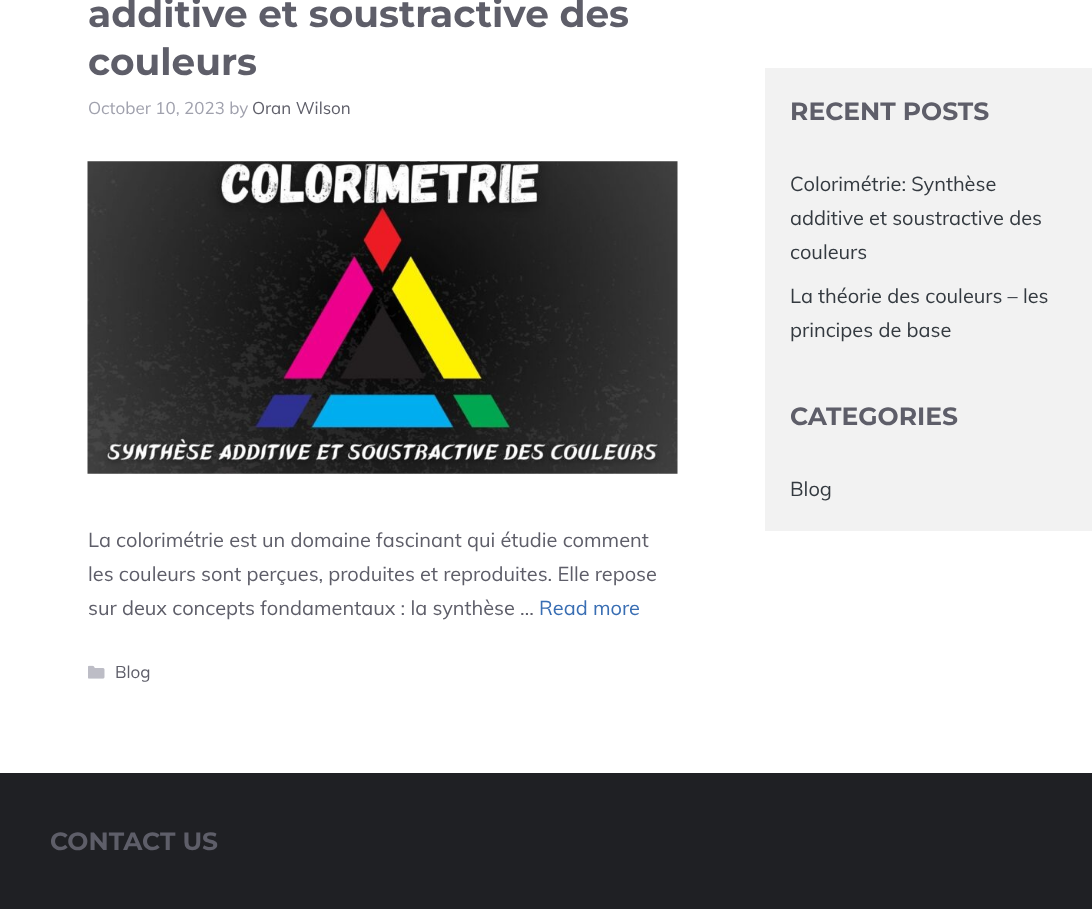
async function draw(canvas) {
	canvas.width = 1092;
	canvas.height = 909;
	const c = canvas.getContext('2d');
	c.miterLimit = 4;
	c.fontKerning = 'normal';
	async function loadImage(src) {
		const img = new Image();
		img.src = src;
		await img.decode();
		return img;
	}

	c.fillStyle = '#1f2024';
	c.fillRect(0, 0, 1092, 909);
	c.fillStyle = '#fff';
	c.fillRect(0, 0, 1092, 773);
	c.font = 'bold 37.5px Montserrat';
	c.fillStyle = '#5e5e69';
	c.fillText('additive et soustractive des', 88, 27);
	c.fillText('couleurs', 88, 75);
	c.font = '17px Muli';
	c.fillStyle = '#a0a1ad';
	c.fillText('October 10, 2023 by', 88, 114);
	c.fillStyle = '#5e5e69';
	c.fillText('Oran Wilson', 252, 114);
	c.drawImage(await loadImage('img1.png'), 87, 161, 591, 313);
	c.font = '20px Muli';
	for (const [text, x, y] of [
		['La colorimétrie est un domaine fascinant qui étudie comment', 88, 547],
		['les couleurs sont perçues, produites et reproduites. Elle repose', 88, 581],
		['sur deux concepts fondamentaux : la synthèse …', 88, 615],
	]) {
		c.fillText(text, x, y);
	}
	c.fillStyle = '#396eb3';
	c.fillText('Read more', 539, 615);
	c.drawImage(await loadImage('img2.png'), 88, 665, 17, 14);
	c.font = '17px Muli';
	c.fillStyle = '#5e5e69';
	c.fillText('Blog', 115, 678);
	c.fillStyle = '#f2f2f2';
	c.fillRect(765, 68, 327, 463);
	c.font = 'bold 25px Montserrat';
	c.fillStyle = '#5e5e69';
	c.fillText('RECENT POSTS', 790, 120);
	c.font = '20px Muli';
	c.fillStyle = '#343a40';
	for (const [text, x, y] of [
		['Colorimétrie: Synthèse', 790, 191],
		['additive et soustractive des', 790, 225],
		['couleurs', 790, 259],
		['La théorie des couleurs – les', 790, 303],
		['principes de base', 790, 337],
	]) {
		c.fillText(text, x, y);
	}
	c.font = 'bold 25px Montserrat';
	c.fillStyle = '#5e5e69';
	c.fillText('CATEGORIES', 790, 425);
	c.font = '20px Muli';
	c.fillStyle = '#343a40';
	c.fillText('Blog', 790, 496);
	c.font = 'bold 25px Montserrat';
	c.fillStyle = '#5e5e69';
	c.fillText('CONTACT US', 50, 850);
}

draw(document.querySelector('canvas'));
